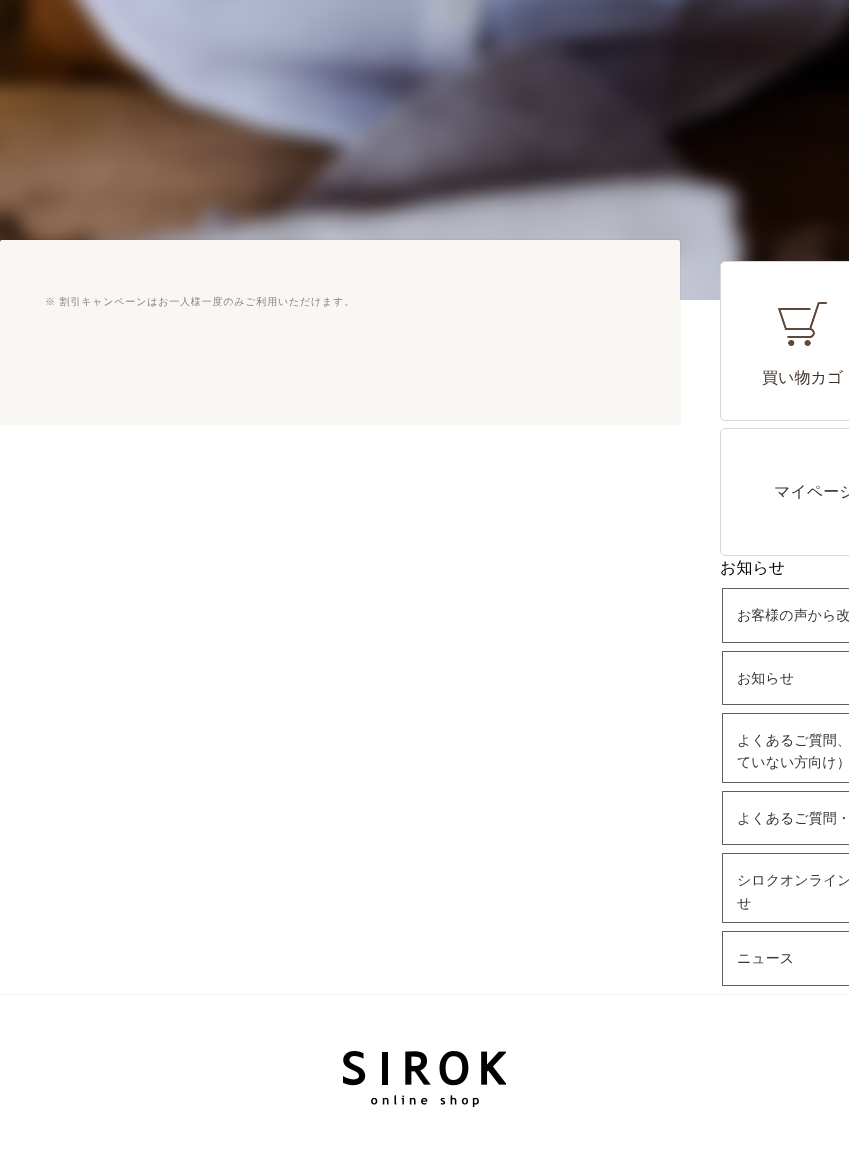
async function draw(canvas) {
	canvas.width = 849;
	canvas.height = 1158;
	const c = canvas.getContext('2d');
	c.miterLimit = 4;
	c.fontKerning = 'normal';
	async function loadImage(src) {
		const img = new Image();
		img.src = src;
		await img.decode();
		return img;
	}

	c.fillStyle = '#fff';
	c.fillRect(0, 0, 849, 1158);
	c.drawImage(await loadImage('img1.png'), 0, 0, 849, 300);
	c.fillStyle = '#f2f2f2';
	c.fillRect(0, 994, 849, 1);
	c.fillStyle = '#0000001a';
	c.filter = 'blur(1px)';
	c.beginPath();
	c.roundRect(0, 240, 680, 184, 2);
	c.fill();
	c.filter = 'none';
	c.fillStyle = '#f8f7f4';
	c.beginPath();
	c.roundRect(0, 240, 680, 184, 2);
	c.fill();
	c.letterSpacing = '0.8px';
	c.font = '500 10px WenQuanYi Zen Hei';
	c.fillStyle = '#85837f';
	c.fillText('※ 割引キャンペーンはお一人様一度のみご利用いただけます。', 45, 305);
	c.fillStyle = '#fff';
	c.beginPath();
	c.roundRect(720.5, 261.5, 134, 159, 4.5);
	c.fill();
	c.strokeStyle = '#d7d7d7';
	c.stroke();
	c.drawImage(await loadImage('img2.png'), 778, 302, 49, 44);
	c.letterSpacing = '0px';
	c.font = '500 16px WenQuanYi Zen Hei';
	c.fillStyle = '#40312a';
	c.fillText('買い物カゴ', 762, 383);
	c.beginPath();
	c.roundRect(720.5, 428.5, 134, 127, 4.5);
	c.stroke();
	c.fillText('マイページ', 774, 497);
	c.fillStyle = '#000';
	c.fillText('お知らせ', 720, 573);
	c.strokeStyle = '#605d5c';
	c.strokeRect(722.5, 588.5, 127, 54);
	c.font = '500 14px WenQuanYi Zen Hei';
	c.fillStyle = '#3b3636';
	c.fillText('お客様の声から改', 737, 620);
	c.strokeRect(722.5, 651.5, 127, 53);
	c.fillText('お知らせ', 737, 683);
	c.strokeRect(722.5, 713.5, 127, 69);
	c.fillText('よくあるご質問、', 737, 745);
	c.fillText('ていない方向け）', 737, 767);
	c.strokeRect(722.5, 791.5, 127, 53);
	c.fillText('よくあるご質問・', 737, 823);
	c.strokeRect(722.5, 853.5, 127, 69);
	c.fillText('シロクオンライン', 737, 885);
	c.fillText('せ', 737, 908);
	c.strokeRect(722.5, 931.5, 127, 54);
	c.fillText('ニュース', 737, 963);
	c.drawImage(await loadImage('img3.png'), 343, 1051, 163, 56);
}

draw(document.querySelector('canvas'));
